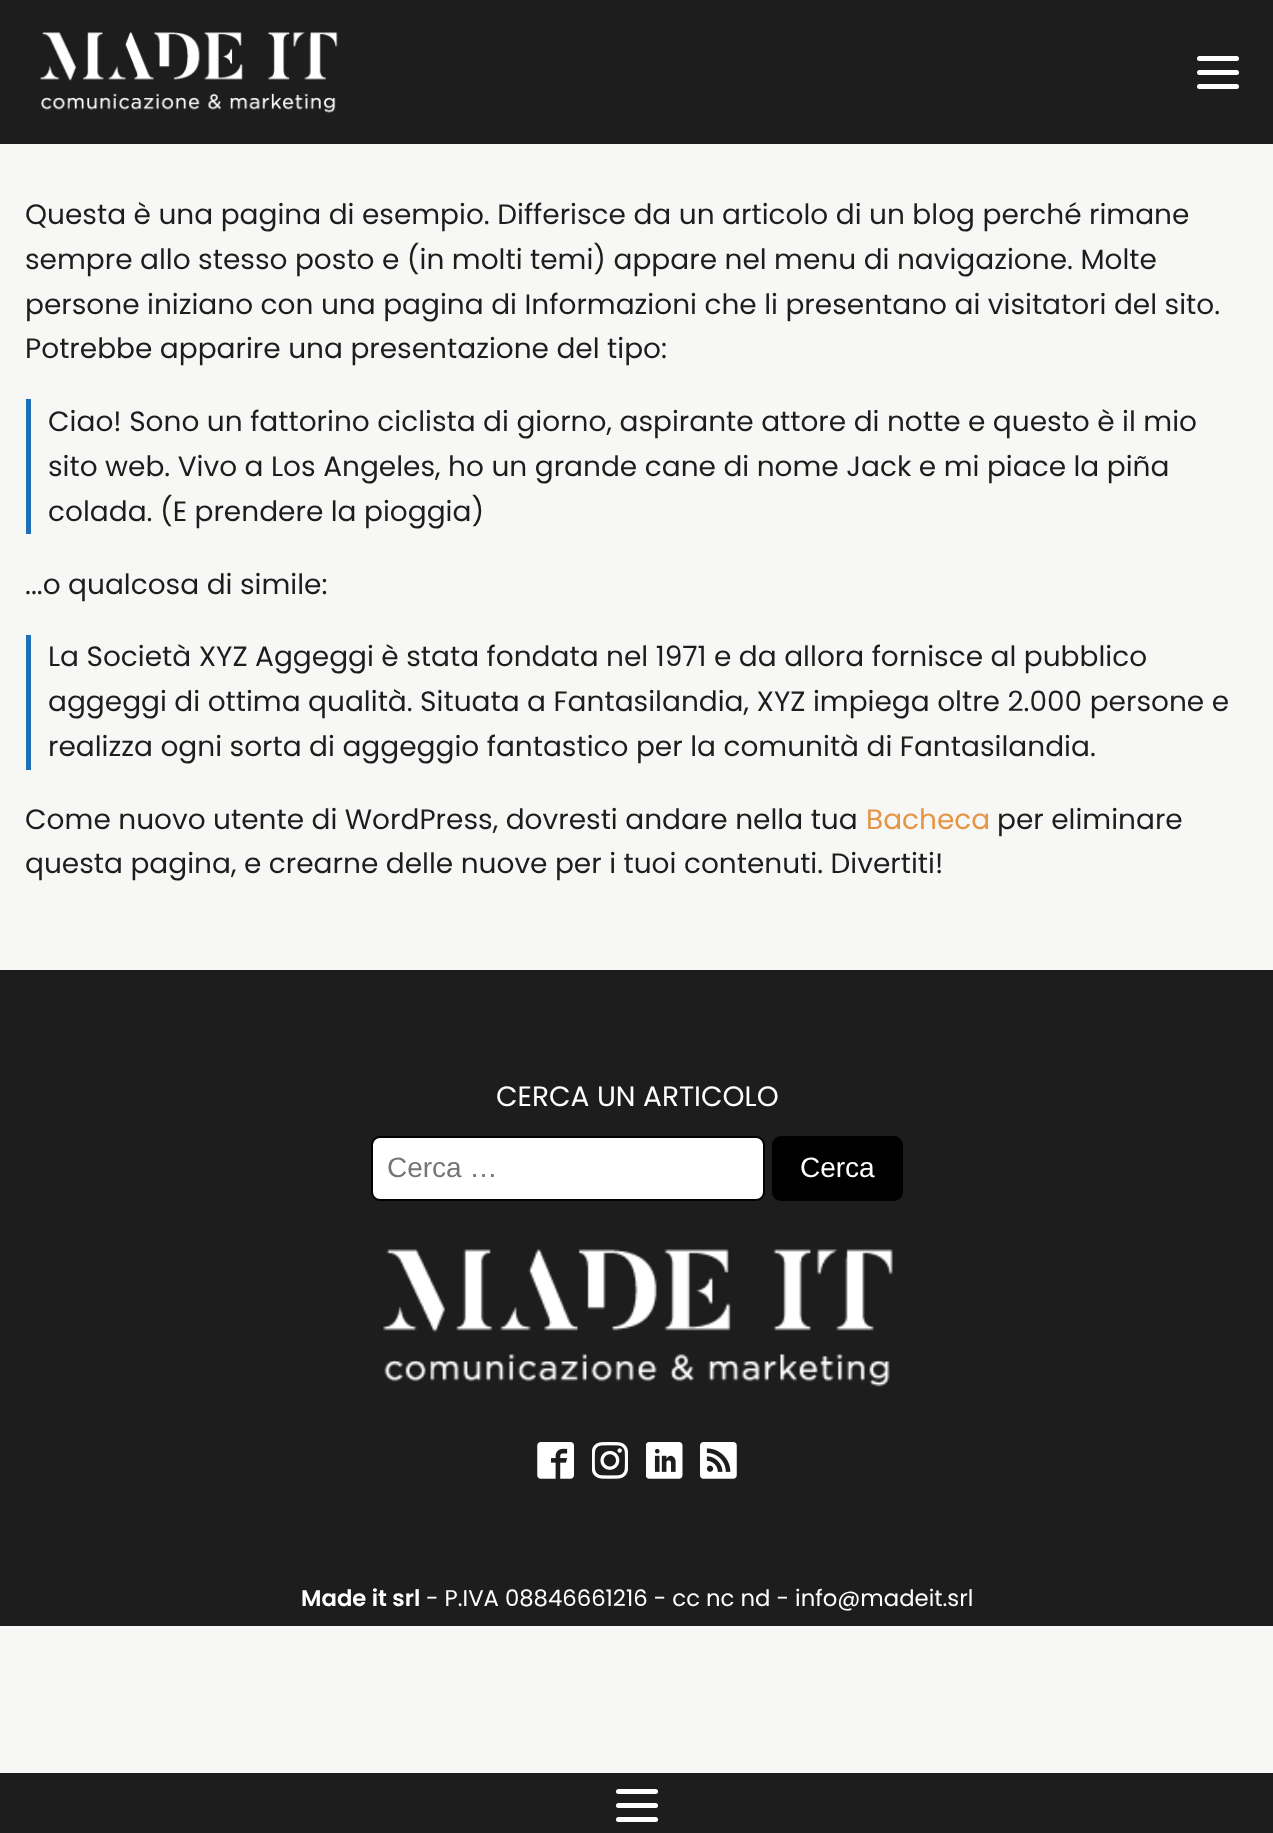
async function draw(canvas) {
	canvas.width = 1273;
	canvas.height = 1833;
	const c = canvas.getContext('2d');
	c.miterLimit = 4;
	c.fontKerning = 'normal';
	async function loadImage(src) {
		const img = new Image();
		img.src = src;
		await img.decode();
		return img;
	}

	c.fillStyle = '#f7f7f6';
	c.fillRect(0, 0, 1273, 1833);
	c.fillStyle = '#1d1d1e';
	c.fillRect(0, 0, 1273, 144);
	c.drawImage(await loadImage('img1.png'), 40, 32, 298, 81);
	c.fillStyle = '#fff';
	c.beginPath();
	c.roundRect(1197, 56, 42, 5, 2.5);
	c.fill();
	c.beginPath();
	c.roundRect(1197, 70, 42, 5, 2.5);
	c.fill();
	c.beginPath();
	c.roundRect(1197, 84, 42, 5, 2.5);
	c.fill();
	c.font = '28px Poppins';
	c.fillStyle = '#1d1d1e';
	for (const [text, x, y] of [
		['Questa è una pagina di esempio. Differisce da un articolo di un blog perché rimane', 25, 224],
		['sempre allo stesso posto e (in molti temi) appare nel menu di navigazione. Molte', 25, 269],
		['persone iniziano con una pagina di Informazioni che li presentano ai visitatori del sito.', 25, 314],
		['Potrebbe apparire una presentazione del tipo:', 25, 358],
	]) {
		c.fillText(text, x, y);
	}
	c.fillStyle = '#1d70b8';
	c.fillRect(26, 399, 5, 135);
	c.fillStyle = '#1d1d1e';
	for (const [text, x, y] of [
		['Ciao! Sono un fattorino ciclista di giorno, aspirante attore di notte e questo è il mio', 48, 431],
		['sito web. Vivo a Los Angeles, ho un grande cane di nome Jack e mi piace la piña', 48, 476],
		['colada. (E prendere la pioggia)', 48, 521],
		['...o qualcosa di simile:', 25, 594],
	]) {
		c.fillText(text, x, y);
	}
	c.fillStyle = '#1d70b8';
	c.fillRect(26, 635, 5, 135);
	c.fillStyle = '#1d1d1e';
	for (const [text, x, y] of [
		['La Società XYZ Aggeggi è stata fondata nel 1971 e da allora fornisce al pubblico', 48, 666],
		['aggeggi di ottima qualità. Situata a Fantasilandia, XYZ impiega oltre 2.000 persone e', 48, 711],
		['realizza ogni sorta di aggeggio fantastico per la comunità di Fantasilandia.', 48, 756],
		['Come nuovo utente di WordPress, dovresti andare nella tua', 25, 829],
	]) {
		c.fillText(text, x, y);
	}
	c.fillStyle = '#e59544';
	c.fillText('Bacheca', 866, 829);
	c.fillStyle = '#1d1d1e';
	c.fillText('per eliminare', 997, 829);
	c.fillText('questa pagina, e crearne delle nuove per i tuoi contenuti. Divertiti!', 25, 873);
	c.fillRect(0, 970, 1273, 656);
	c.fillStyle = '#fff';
	c.fillText('CERCA UN ARTICOLO', 496, 1106);
	c.beginPath();
	c.roundRect(372, 1137, 392, 63, 8);
	c.fill();
	c.strokeStyle = '#000';
	c.lineWidth = 2;
	c.stroke();
	c.font = '28px Liberation Sans';
	c.fillStyle = '#757575';
	c.fillText('Cerca …', 387, 1177);
	c.fillStyle = '#000';
	c.beginPath();
	c.roundRect(772, 1136, 131, 65, 9);
	c.fill();
	c.fillStyle = '#fff';
	c.fillText('Cerca', 800, 1177);
	c.drawImage(await loadImage('img2.png'), 383, 1249, 510, 138);
	c.drawImage(await loadImage('img3.png'), 537, 1442, 37, 37);
	c.drawImage(await loadImage('img4.png'), 592, 1442, 36, 37);
	c.drawImage(await loadImage('img5.png'), 646, 1442, 37, 37);
	c.drawImage(await loadImage('img6.png'), 700, 1442, 37, 37);
	c.font = '600 22.75px Poppins';
	c.fillText('Made it srl', 301, 1606);
	c.font = '22.75px Poppins';
	c.fillText('- P.IVA 08846661216 - cc nc nd - info@madeit.srl', 426, 1606);
	c.fillStyle = '#1d1d1e';
	c.fillRect(0, 1773, 1273, 60);
	c.fillStyle = '#fff';
	c.beginPath();
	c.roundRect(616, 1789, 42, 5, 2.5);
	c.fill();
	c.beginPath();
	c.roundRect(616, 1803, 42, 5, 2.5);
	c.fill();
	c.beginPath();
	c.roundRect(616, 1817, 42, 5, 2.5);
	c.fill();
}

draw(document.querySelector('canvas'));
